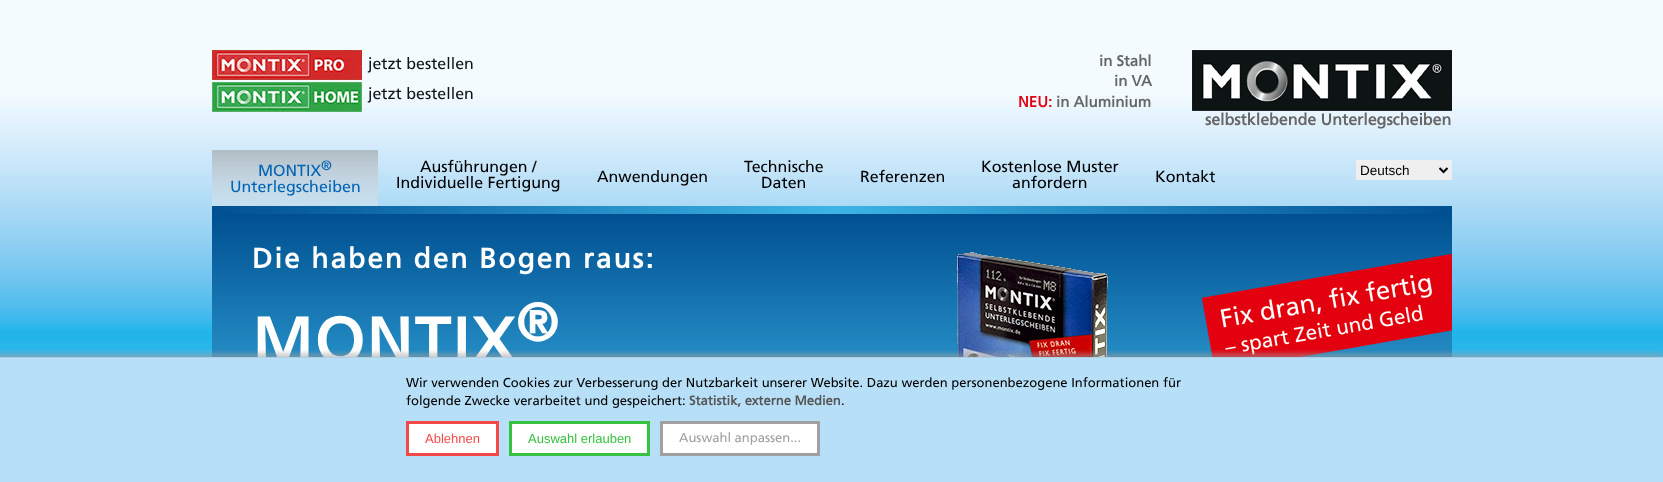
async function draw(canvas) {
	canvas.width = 1663;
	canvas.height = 482;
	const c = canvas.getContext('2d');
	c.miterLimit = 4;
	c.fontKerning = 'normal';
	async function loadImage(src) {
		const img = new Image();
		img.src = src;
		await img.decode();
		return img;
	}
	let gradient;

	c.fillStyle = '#fff';
	c.fillRect(0, 0, 1663, 482);
	c.drawImage(await loadImage('img1.png'), 0, 0, 1663, 357);
	c.drawImage(await loadImage('img2.png'), 212, 50, 150, 30);
	c.font = '16px Frutiger';
	c.fillStyle = '#0e1314';
	c.fillText('jetzt bestellen', 368, 69);
	c.drawImage(await loadImage('img3.png'), 212, 82, 150, 30);
	c.fillText('jetzt bestellen', 368, 99);
	c.font = 'bold 15px Frutiger';
	c.fillStyle = '#666';
	c.fillText('in Stahl', 1099, 66);
	c.fillText('in VA', 1114, 86);
	c.fillStyle = '#e3000f';
	c.fillText('NEU:', 1018, 107);
	c.fillStyle = '#666';
	c.fillText('in Aluminium', 1056, 107);
	c.drawImage(await loadImage('img4.png'), 1192, 50, 260, 61);
	c.font = 'bold 16px Frutiger';
	c.fillText('selbstklebende Unterlegscheiben', 1205, 125);
	c.fillStyle = '#efefef';
	c.fillRect(1356, 160, 96, 20);
	c.beginPath();
	c.moveTo(1439.5, 168);
	c.lineTo(1443.5, 172);
	c.lineTo(1447.5, 168);
	c.strokeStyle = '#000';
	c.lineWidth = 2;
	c.stroke();
	c.font = '13.5px Liberation Sans';
	c.fillStyle = '#000';
	c.fillText('Deutsch', 1360, 175);
	c.font = '16px Frutiger';
	c.fillStyle = '#0064b4';
	c.fillText('MONTIX', 258, 176);
	c.font = '13.5px Frutiger';
	c.fillText('®', 321, 170);
	c.font = '16px Frutiger';
	c.fillText('Unterlegscheiben', 230, 192);
	c.fillStyle = '#000';
	for (const [text, x, y] of [
		['Ausführungen /', 420, 172],
		['Individuelle Fertigung', 396, 188],
		['Anwendungen', 597, 182],
		['Technische', 744, 172],
		['Daten', 761, 188],
		['Referenzen', 860, 182],
		['Kostenlose Muster', 981, 172],
		['anfordern', 1012, 188],
		['Kontakt', 1155, 182],
	]) {
		c.fillText(text, x, y);
	}
	gradient = c.createLinearGradient(212, 210, 1452, 210);
	gradient.addColorStop(0, '#005091');
	gradient.addColorStop(0.5, '#3cb4e6');
	gradient.addColorStop(1, '#005091');
	c.fillStyle = gradient;
	c.fillRect(212, 206, 1240, 8);
	gradient = c.createLinearGradient(832, 214, 832, 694);
	gradient.addColorStop(0, '#005091');
	gradient.addColorStop(0.5, '#3cb4e6');
	gradient.addColorStop(1, '#005091');
	c.fillStyle = gradient;
	c.fillRect(212, 214, 1240, 143);
	c.letterSpacing = '2px';
	c.font = 'bold 28px Frutiger';
	c.fillStyle = '#fff';
	c.fillText('Die haben den Bogen raus:', 252, 268);
	c.font = 'bold 64px Frutiger';
	c.fillText('MONTIX', 252, 363);
	c.font = 'bold 53px Frutiger';
	c.fillText('®', 516, 341);
	c.drawImage(await loadImage('img5.png'), 957, 252, 151, 105);
	c.drawImage(await loadImage('img6.png'), 1202, 254, 250, 103);
	c.fillStyle = '#a0a0a080';
	c.filter = 'blur(2px)';
	c.beginPath();
	c.rect(-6, 353, 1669, 125);
	c.fill();
	c.filter = 'none';
	c.fillStyle = '#b7dff8';
	c.fillRect(0, 358, 1663, 124);
	c.fillStyle = '#b1cfe2';
	c.fillRect(0, 357, 1663, 1);
	c.letterSpacing = '0px';
	c.font = '13px Frutiger';
	c.fillStyle = '#000';
	c.fillText('Wir verwenden Cookies zur Verbesserung der Nutzbarkeit unserer Website. Dazu werden personenbezogene Informationen für', 406, 387);
	c.fillText('folgende Zwecke verarbeitet und gespeichert:', 406, 405);
	c.font = 'bold 13px Frutiger';
	c.fillStyle = '#555';
	c.fillText('Statistik, externe Medien', 689, 405);
	c.font = '13px Frutiger';
	c.fillStyle = '#000';
	c.fillText('.', 841, 405);
	c.fillStyle = '#fff';
	c.beginPath();
	c.rect(407.5, 422.5, 90, 32);
	c.fill();
	c.strokeStyle = '#f44949';
	c.lineWidth = 3;
	c.stroke();
	c.font = '13px Liberation Sans';
	c.fillStyle = '#f44949';
	c.fillText('Ablehnen', 425, 443);
	c.fillStyle = '#fff';
	c.beginPath();
	c.rect(510.5, 422.5, 138, 32);
	c.fill();
	c.strokeStyle = '#36c140';
	c.stroke();
	c.fillStyle = '#36c140';
	c.fillText('Auswahl erlauben', 528, 443);
	c.fillStyle = '#fff';
	c.beginPath();
	c.rect(661.5, 422.5, 157, 32);
	c.fill();
	c.strokeStyle = '#a0a0a0';
	c.stroke();
	c.font = '13px Frutiger';
	c.fillStyle = '#a0a0a0';
	c.fillText('Auswahl anpassen...', 679, 442);
}

draw(document.querySelector('canvas'));
